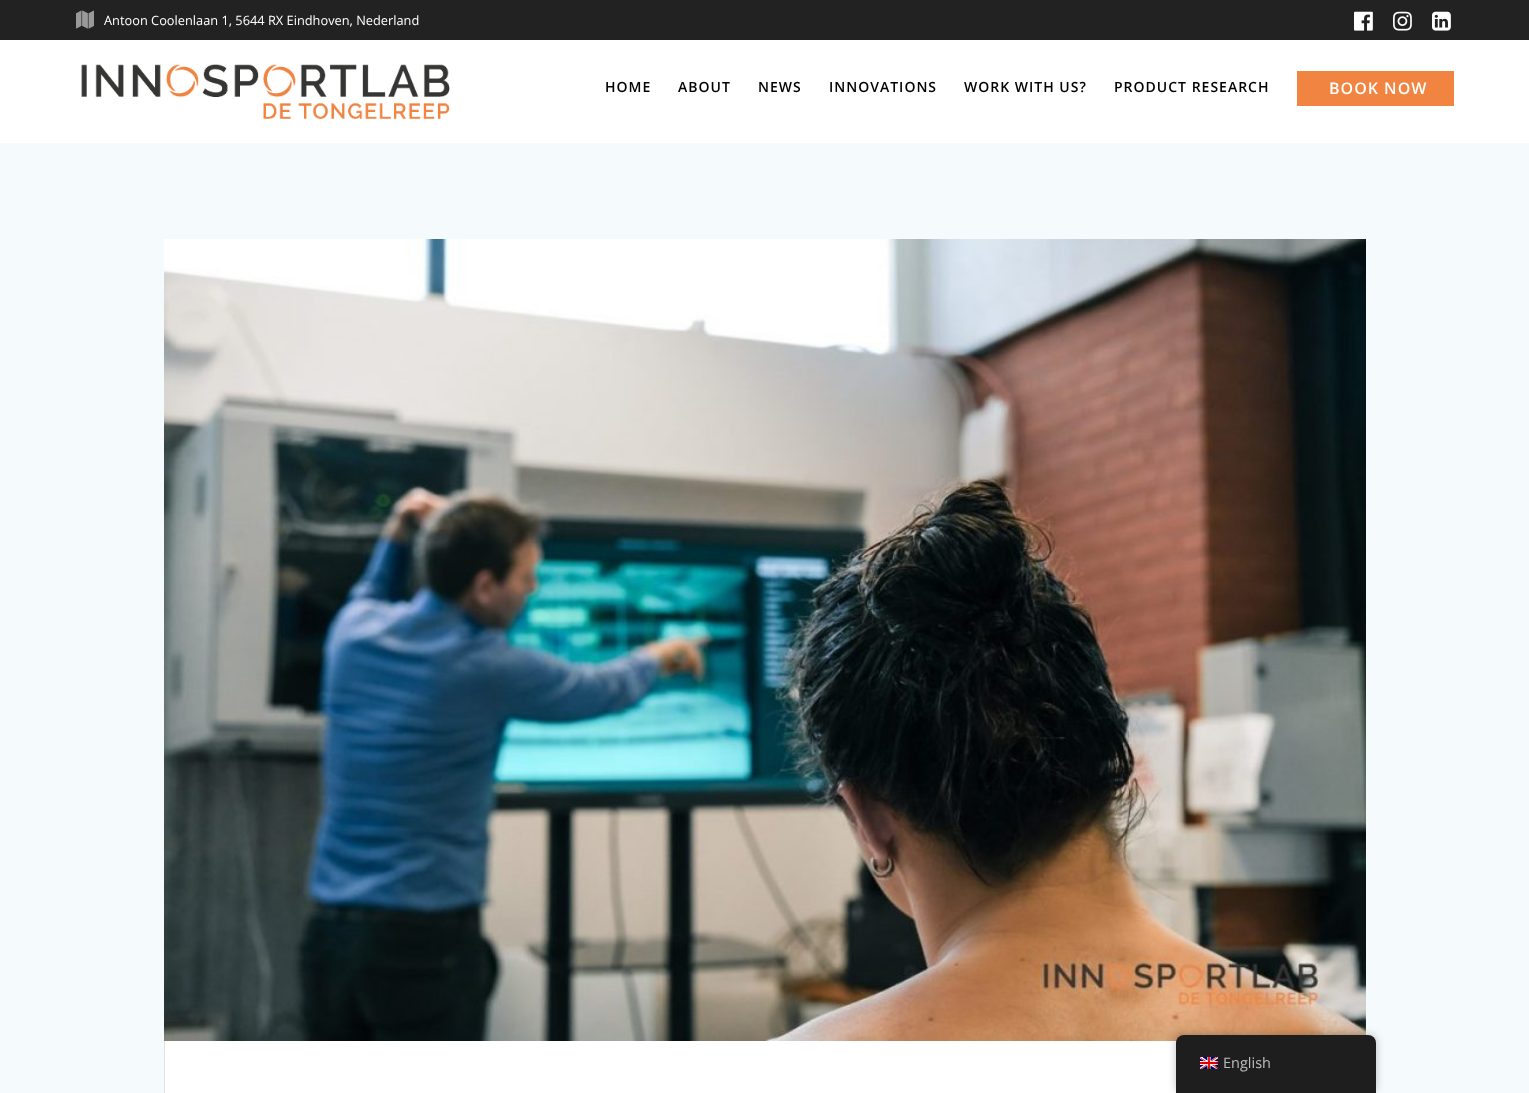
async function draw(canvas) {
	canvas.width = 1529;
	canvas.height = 1093;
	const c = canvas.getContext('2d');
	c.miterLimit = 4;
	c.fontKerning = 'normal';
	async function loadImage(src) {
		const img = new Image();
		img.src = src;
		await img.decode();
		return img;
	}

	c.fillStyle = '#f5fafd';
	c.fillRect(0, 0, 1529, 1093);
	c.fillStyle = '#222';
	c.fillRect(0, 0, 1529, 40);
	c.drawImage(await loadImage('img1.png'), 76, 10, 18, 19);
	c.font = '12.8px Open Sans';
	c.fillStyle = '#fff';
	c.fillText('Antoon Coolenlaan 1, 5644 RX Eindhoven, Nederland', 104, 25);
	c.drawImage(await loadImage('img2.png'), 1354, 11, 19, 20);
	c.drawImage(await loadImage('img3.png'), 1393, 11, 19, 20);
	c.drawImage(await loadImage('img4.png'), 1432, 11, 19, 20);
	c.fillRect(0, 40, 1529, 103);
	c.drawImage(await loadImage('img5.png'), 81, 64, 369, 55);
	c.letterSpacing = '1px';
	c.font = '600 14px Open Sans';
	c.fillStyle = '#000';
	for (const [text, x, y] of [
		['HOME', 605, 92],
		['ABOUT', 678, 92],
		['NEWS', 758, 92],
		['INNOVATIONS', 829, 92],
		['WORK WITH US?', 964, 92],
		['PRODUCT RESEARCH', 1114, 92],
	]) {
		c.fillText(text, x, y);
	}
	c.fillStyle = '#f18441';
	c.fillRect(1297, 71, 157, 35);
	c.font = '600 16px Open Sans';
	c.fillStyle = '#fff';
	c.fillText('BOOK NOW', 1329, 94);
	c.fillRect(165, 1041, 1012, 52);
	c.strokeStyle = '#e0e1e1';
	c.strokeRect(164.5, 239.5, 1201, 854);
	c.drawImage(await loadImage('img6.png'), 164, 239, 1202, 802);
	c.fillStyle = '#00000040';
	c.filter = 'blur(4px)';
	c.beginPath();
	c.roundRect(1176, 1035, 200, 58, 8);
	c.fill();
	c.filter = 'none';
	c.fillStyle = '#1e1e1e';
	c.beginPath();
	c.roundRect(1176, 1035, 200, 58, [8, 8, 0, 0]);
	c.fill();
	c.drawImage(await loadImage('img7.png'), 1200, 1057, 18, 12);
	c.letterSpacing = '0px';
	c.font = '14.5px Open Sans';
	c.fillStyle = '#bdbdbd';
	c.fillText('English', 1223, 1068);
}

draw(document.querySelector('canvas'));
